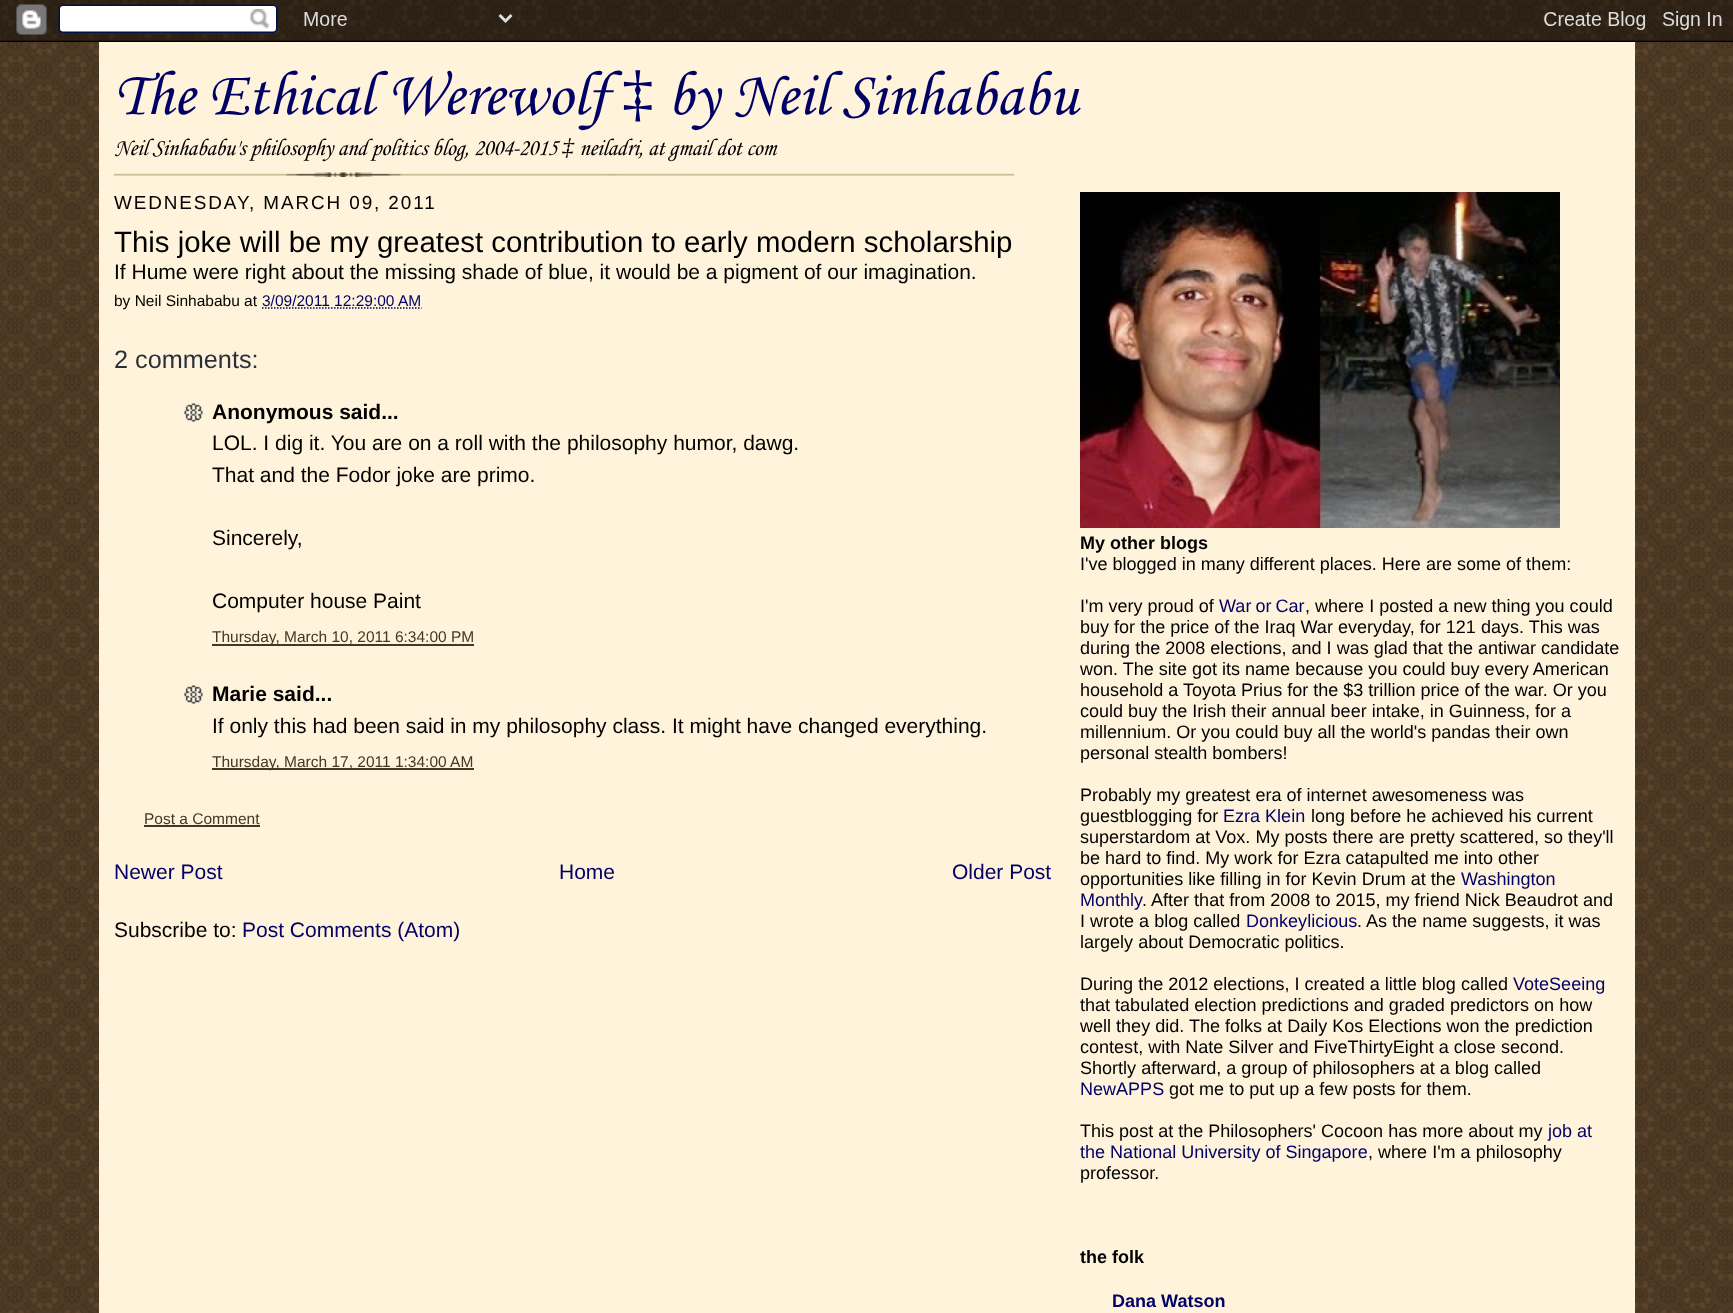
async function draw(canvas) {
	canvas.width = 1733;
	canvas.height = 1313;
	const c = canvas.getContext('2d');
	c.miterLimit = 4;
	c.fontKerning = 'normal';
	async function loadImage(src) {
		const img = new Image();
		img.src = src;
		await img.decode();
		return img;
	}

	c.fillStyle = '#fff';
	c.fillRect(0, 0, 1733, 1313);
	c.drawImage(await loadImage('img1.png'), 0, 0, 1733, 1313);
	c.drawImage(await loadImage('img2.png'), 0, 0, 1733, 42);
	c.fillStyle = '#fff3db';
	c.fillRect(99, 42, 1536, 1271);
	c.drawImage(await loadImage('img3.png'), 114, 172, 900, 5);
	c.font = '63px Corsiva';
	c.fillStyle = '#006';
	c.fillText('The Ethical Werewolf', 114, 114);
	c.font = '63px Liberation Serif';
	c.fillText('‡', 622, 114);
	c.font = '63px Corsiva';
	c.fillText('by Neil Sinhababu', 667, 114);
	c.font = 'italic 24px Corsiva';
	c.fillStyle = '#000';
	c.fillText('Neil Sinhababu\'s philosophy and politics blog, 2004-2015', 114, 155);
	c.font = 'italic 24px Liberation Serif';
	c.fillText('‡', 562, 155);
	c.font = 'italic 24px Corsiva';
	c.fillText('neiladri, at gmail dot com', 579, 155);
	c.letterSpacing = '1.9px';
	c.font = '18.9px Liberation Sans';
	c.fillText('WEDNESDAY, MARCH 09, 2011', 114, 209);
	c.letterSpacing = '0px';
	c.font = '29.4px Liberation Sans';
	c.fillText('This joke will be my greatest contribution to early modern scholarship', 114, 252);
	c.font = '21px Liberation Sans';
	c.fillText('If Hume were right about the missing shade of blue, it would be a pigment of our imagination.', 114, 279);
	c.font = '15.5px Liberation Sans';
	c.fillText('by Neil Sinhababu at', 114, 306);
	c.fillStyle = '#006';
	c.fillText('3/09/2011 12:29:00 AM', 262, 306);
	c.beginPath();
	c.moveTo(262, 308);
	c.lineTo(421.5, 308);
	c.strokeStyle = '#006';
	c.lineWidth = 1.5;
	c.setLineDash([1.5, 1.5]);
	c.stroke();
	c.font = '25.25px Liberation Sans';
	c.fillStyle = '#29303b';
	c.fillText('2 comments:', 114, 368);
	c.drawImage(await loadImage('img4.png'), 184, 403, 19, 19);
	c.font = 'bold 21px Liberation Sans';
	c.fillStyle = '#000';
	c.fillText('Anonymous said...', 212, 419);
	c.font = '21px Liberation Sans';
	for (const [text, x, y] of [
		['LOL. I dig it. You are on a roll with the philosophy humor, dawg.', 212, 450],
		['That and the Fodor joke are primo.', 212, 482],
		['Sincerely,', 212, 545],
		['Computer house Paint', 212, 608],
	]) {
		c.fillText(text, x, y);
	}
	c.fillStyle = '#473624';
	c.fillRect(212, 644, 262, 2);
	c.font = '15.5px Liberation Sans';
	c.fillText('Thursday, March 10, 2011 6:34:00 PM', 212, 642);
	c.drawImage(await loadImage('img4.png'), 184, 685, 19, 19);
	c.font = 'bold 21px Liberation Sans';
	c.fillStyle = '#000';
	c.fillText('Marie said...', 212, 701);
	c.font = '21px Liberation Sans';
	c.fillText('If only this had been said in my philosophy class. It might have changed everything.', 212, 733);
	c.fillStyle = '#473624';
	c.fillRect(212, 768, 262, 2);
	c.font = '15.5px Liberation Sans';
	c.fillText('Thursday, March 17, 2011 1:34:00 AM', 212, 767);
	c.fillText('Post a Comment', 144, 824);
	c.fillRect(144, 825, 116, 2);
	c.font = '21px Liberation Sans';
	c.fillStyle = '#006';
	for (const [text, x, y] of [
		['Newer Post', 114, 879],
		['Home', 559, 879],
		['Older Post', 952, 879],
	]) {
		c.fillText(text, x, y);
	}
	c.fillStyle = '#000';
	c.fillText('Subscribe to:', 114, 937);
	c.fillStyle = '#006';
	c.fillText('Post Comments (Atom)', 242, 937);
	c.drawImage(await loadImage('img5.png'), 1080, 192, 480, 336);
	c.font = 'bold 18px Liberation Sans';
	c.fillStyle = '#000';
	c.fillText('My other blogs', 1080, 549);
	c.font = '18.05px Liberation Sans';
	c.fillText('I\'ve blogged in many different places. Here are some of them:', 1080, 570);
	c.fillText('I\'m very proud of', 1080, 612);
	c.wordSpacing = '-1px';
	c.fillStyle = '#006';
	c.fillText('War or Car', 1219, 612);
	c.wordSpacing = '0px';
	c.fillStyle = '#000';
	for (const [text, x, y] of [
		[', where I posted a new thing you could', 1305, 612],
		['buy for the price of the Iraq War everyday, for 121 days. This was', 1080, 633],
		['during the 2008 elections, and I was glad that the antiwar candidate', 1080, 654],
		['won. The site got its name because you could buy every American', 1080, 675],
		['household a Toyota Prius for the $3 trillion price of the war. Or you', 1080, 696],
		['could buy the Irish their annual beer intake, in Guinness, for a', 1080, 717],
		['millennium. Or you could buy all the world\'s pandas their own', 1080, 738],
		['personal stealth bombers!', 1080, 759],
		['Probably my greatest era of internet awesomeness was', 1080, 801],
		['guestblogging for', 1080, 822],
	]) {
		c.fillText(text, x, y);
	}
	c.fillStyle = '#006';
	c.fillText('Ezra Klein', 1223, 822);
	c.fillStyle = '#000';
	for (const [text, x, y] of [
		['long before he achieved his current', 1311, 822],
		['superstardom at Vox. My posts there are pretty scattered, so they\'ll', 1080, 843],
		['be hard to find. My work for Ezra catapulted me into other', 1080, 864],
		['opportunities like filling in for Kevin Drum at the', 1080, 885],
	]) {
		c.fillText(text, x, y);
	}
	c.fillStyle = '#006';
	c.fillText('Washington', 1461, 885);
	c.fillText('Monthly', 1080, 906);
	c.fillStyle = '#000';
	c.fillText('. After that from 2008 to 2015, my friend Nick Beaudrot and', 1142, 906);
	c.fillText('I wrote a blog called', 1080, 927);
	c.fillStyle = '#006';
	c.fillText('Donkeylicious', 1246, 927);
	c.fillStyle = '#000';
	for (const [text, x, y] of [
		['. As the name suggests, it was', 1357, 927],
		['largely about Democratic politics.', 1080, 948],
		['During the 2012 elections, I created a little blog called', 1080, 990],
	]) {
		c.fillText(text, x, y);
	}
	c.fillStyle = '#006';
	c.fillText('VoteSeeing', 1513, 990);
	c.fillStyle = '#000';
	for (const [text, x, y] of [
		['that tabulated election predictions and graded predictors on how', 1080, 1011],
		['well they did. The folks at Daily Kos Elections won the prediction', 1080, 1032],
		['contest, with Nate Silver and FiveThirtyEight a close second.', 1080, 1053],
		['Shortly afterward, a group of philosophers at a blog called', 1080, 1074],
	]) {
		c.fillText(text, x, y);
	}
	c.fillStyle = '#006';
	c.fillText('NewAPPS', 1080, 1095);
	c.fillStyle = '#000';
	c.fillText('got me to put up a few posts for them.', 1169, 1095);
	c.fillText('This post at the Philosophers\' Cocoon has more about my', 1080, 1137);
	c.fillStyle = '#006';
	c.fillText('job at', 1548, 1137);
	c.fillText('the National University of Singapore', 1080, 1158);
	c.fillStyle = '#000';
	c.fillText(', where I\'m a philosophy', 1368, 1158);
	c.fillText('professor.', 1080, 1179);
	c.font = 'bold 18px Liberation Sans';
	c.fillText('the folk', 1080, 1263);
	c.font = 'bold 18.05px Liberation Sans';
	c.fillStyle = '#006';
	c.fillText('Dana Watson', 1112, 1307);
}

draw(document.querySelector('canvas'));
